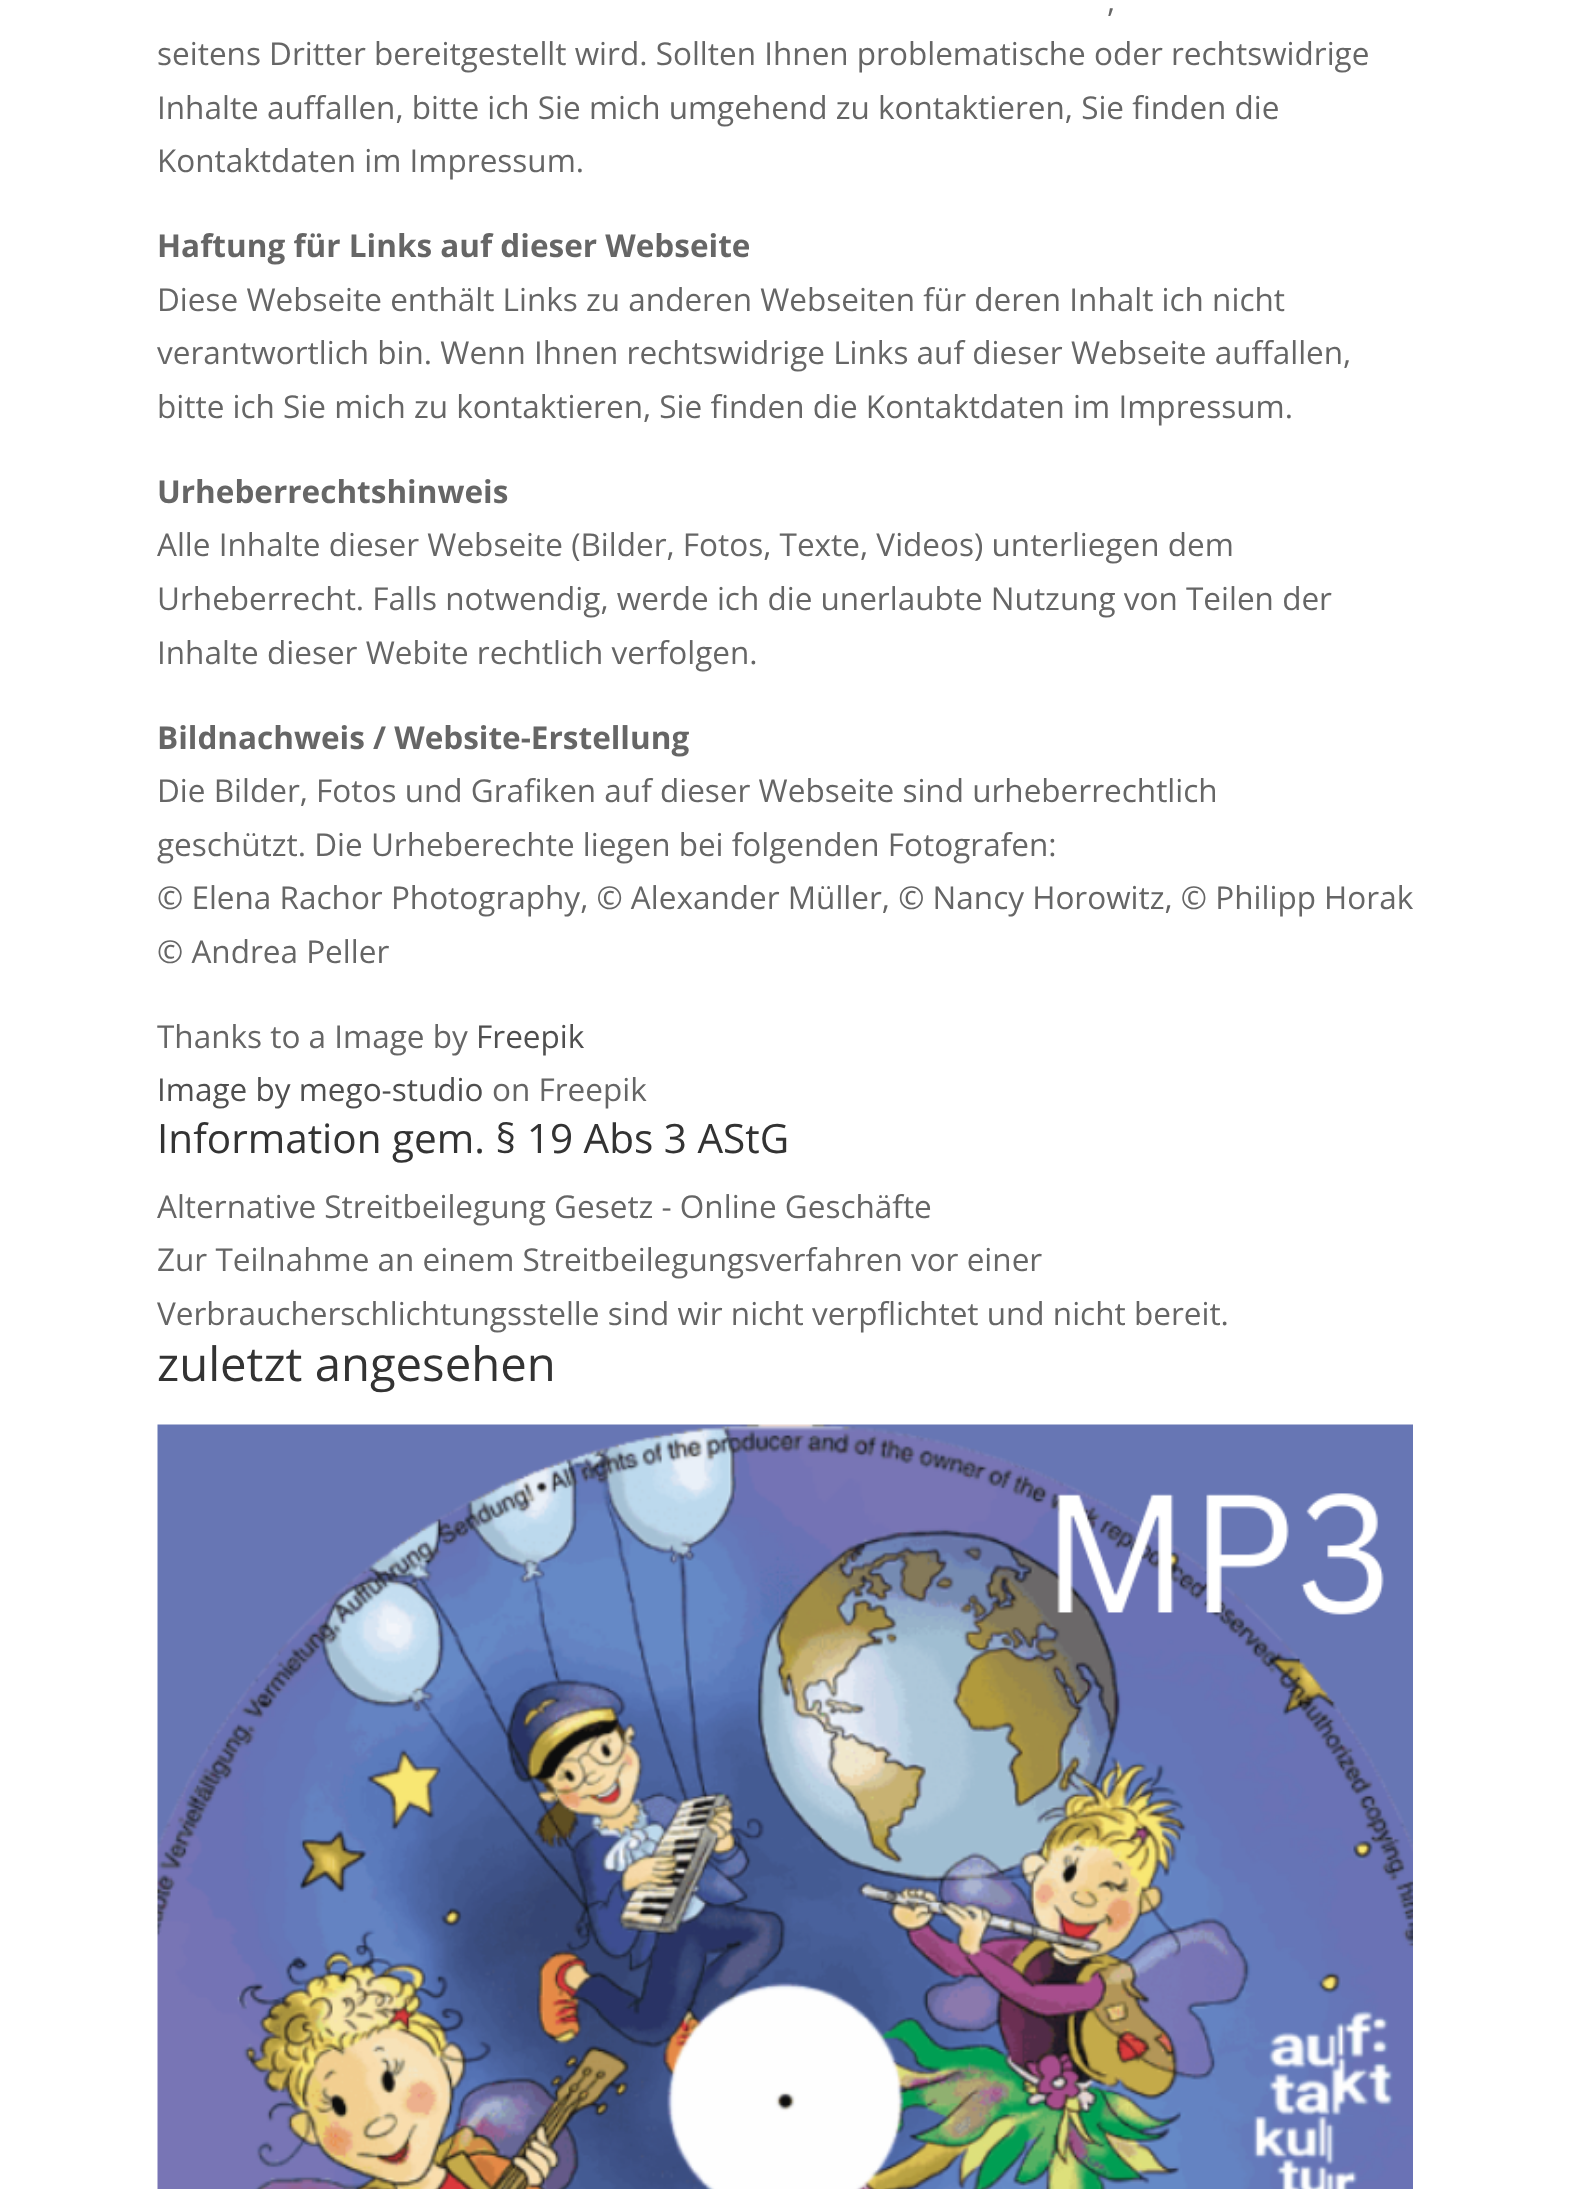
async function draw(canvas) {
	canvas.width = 1569;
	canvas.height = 2189;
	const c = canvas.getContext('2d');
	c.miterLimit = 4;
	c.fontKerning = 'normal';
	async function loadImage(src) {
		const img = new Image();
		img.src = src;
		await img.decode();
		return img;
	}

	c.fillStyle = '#fff';
	c.fillRect(0, 0, 1569, 2189);
	c.font = '31.5px Open Sans';
	c.fillStyle = '#666';
	for (const [text, x, y] of [
		[',', 1107, 12],
		['seitens Dritter bereitgestellt wird. Sollten Ihnen problematische oder rechtswidrige', 157, 65],
		['Inhalte auffallen, bitte ich Sie mich umgehend zu kontaktieren, Sie finden die', 157, 119],
		['Kontaktdaten im Impressum.', 157, 172],
	]) {
		c.fillText(text, x, y);
	}
	c.font = 'bold 31.5px Open Sans';
	c.fillText('Haftung für Links auf dieser Webseite', 157, 257);
	c.font = '31.5px Open Sans';
	for (const [text, x, y] of [
		['Diese Webseite enthält Links zu anderen Webseiten für deren Inhalt ich nicht', 157, 311],
		['verantwortlich bin. Wenn Ihnen rechtswidrige Links auf dieser Webseite auffallen,', 157, 364],
		['bitte ich Sie mich zu kontaktieren, Sie finden die Kontaktdaten im Impressum.', 157, 418],
	]) {
		c.fillText(text, x, y);
	}
	c.font = 'bold 31.5px Open Sans';
	c.fillText('Urheberrechtshinweis', 157, 503);
	c.font = '31.5px Open Sans';
	for (const [text, x, y] of [
		['Alle Inhalte dieser Webseite (Bilder, Fotos, Texte, Videos) unterliegen dem', 157, 556],
		['Urheberrecht. Falls notwendig, werde ich die unerlaubte Nutzung von Teilen der', 157, 610],
		['Inhalte dieser Webite rechtlich verfolgen.', 157, 664],
	]) {
		c.fillText(text, x, y);
	}
	c.font = 'bold 31.5px Open Sans';
	c.fillText('Bildnachweis / Website-Erstellung', 157, 749);
	c.font = '31.5px Open Sans';
	for (const [text, x, y] of [
		['Die Bilder, Fotos und Grafiken auf dieser Webseite sind urheberrechtlich', 157, 802],
		['geschützt. Die Urheberechte liegen bei folgenden Fotografen:', 157, 856],
		['© Elena Rachor Photography, © Alexander Müller, © Nancy Horowitz, © Philipp Horak', 157, 909],
		['© Andrea Peller', 157, 963],
		['Thanks to a Image by', 157, 1048],
	]) {
		c.fillText(text, x, y);
	}
	c.fillStyle = '#4f4f4f';
	c.fillText('Freepik', 476, 1048);
	c.fillText('Image by mego-studio', 157, 1101);
	c.fillStyle = '#666';
	c.fillText('on Freepik', 492, 1101);
	c.font = '40.5px Open Sans';
	c.fillStyle = '#333';
	c.fillText('Information gem. § 19 Abs 3 AStG', 157, 1153);
	c.font = '31.5px Open Sans';
	c.fillStyle = '#666';
	for (const [text, x, y] of [
		['Alternative Streitbeilegung Gesetz - Online Geschäfte', 157, 1218],
		['Zur Teilnahme an einem Streitbeilegungsverfahren vor einer', 157, 1271],
		['Verbraucherschlichtungsstelle sind wir nicht verpflichtet und nicht bereit.', 157, 1325],
	]) {
		c.fillText(text, x, y);
	}
	c.font = '47.25px Open Sans';
	c.fillStyle = '#333';
	c.fillText('zuletzt angesehen', 157, 1381);
	c.drawImage(await loadImage('img1.png'), 157, 1424, 1256, 765);
}

draw(document.querySelector('canvas'));
